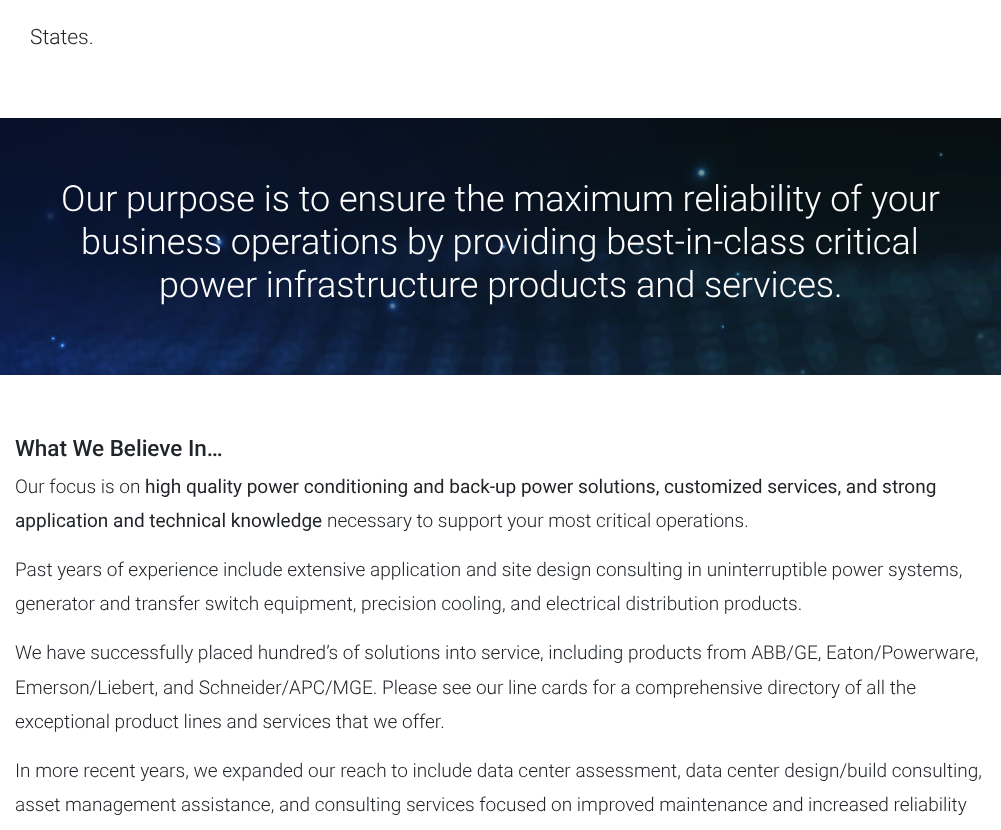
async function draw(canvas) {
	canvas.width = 1001;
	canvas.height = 830;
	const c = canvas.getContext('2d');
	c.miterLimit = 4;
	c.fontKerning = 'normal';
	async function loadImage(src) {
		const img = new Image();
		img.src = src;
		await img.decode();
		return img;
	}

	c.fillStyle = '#fff';
	c.fillRect(0, 0, 1001, 830);
	c.font = '300 21px Roboto';
	c.fillStyle = '#212529';
	c.fillText('States.', 30, 44);
	c.drawImage(await loadImage('img1.png'), 0, 118, 1001, 257);
	c.font = '300 36px Roboto';
	c.fillStyle = '#fff';
	for (const [text, x, y] of [
		['Our purpose is to ensure the maximum reliability of your', 61, 211],
		['business operations by providing best-in-class critical', 81, 254],
		['power infrastructure products and services.', 159, 297],
	]) {
		c.fillText(text, x, y);
	}
	c.font = '500 22.5px Roboto';
	c.fillStyle = '#212529';
	c.fillText('What We Believe In…', 15, 456);
	c.font = '300 19px Roboto';
	c.fillText('Our focus is on', 15, 493);
	c.font = '19px Roboto';
	c.fillText('high quality power conditioning and back-up power solutions, customized services, and strong', 145, 493);
	c.fillText('application and technical knowledge', 15, 527);
	c.font = '300 19px Roboto';
	for (const [text, x, y] of [
		['necessary to support your most critical operations.', 327, 527],
		['Past years of experience include extensive application and site design consulting in uninterruptible power systems,', 15, 576],
		['generator and transfer switch equipment, precision cooling, and electrical distribution products.', 15, 610],
		['We have successfully placed hundred’s of solutions into service, including products from ABB/GE, Eaton/Powerware,', 15, 659],
		['Emerson/Liebert, and Schneider/APC/MGE. Please see our line cards for a comprehensive directory of all the', 15, 694],
		['exceptional product lines and services that we offer.', 15, 728],
		['In more recent years, we expanded our reach to include data center assessment, data center design/build consulting,', 15, 777],
		['asset management assistance, and consulting services focused on improved maintenance and increased reliability', 15, 811],
	]) {
		c.fillText(text, x, y);
	}
}

draw(document.querySelector('canvas'));
